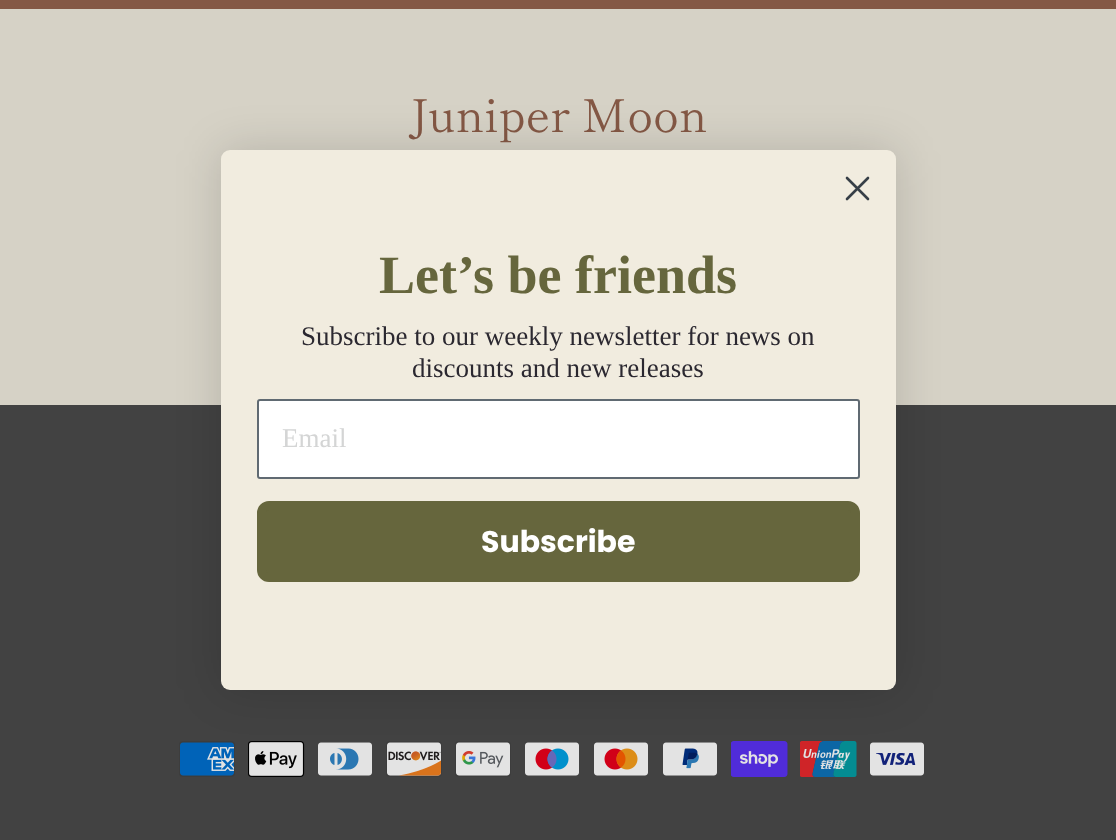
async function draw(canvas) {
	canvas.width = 1116;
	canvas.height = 840;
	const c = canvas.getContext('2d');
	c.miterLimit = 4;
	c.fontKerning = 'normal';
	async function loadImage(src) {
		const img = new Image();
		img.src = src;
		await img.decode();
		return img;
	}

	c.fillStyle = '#424242';
	c.fillRect(0, 0, 1116, 840);
	c.fillStyle = '#845845';
	c.fillRect(0, 0, 1116, 9);
	c.fillStyle = '#d6d2c6';
	c.fillRect(0, 9, 1116, 396);
	c.font = '45px Shippori Mincho';
	c.fillStyle = '#845845';
	c.fillText('Juniper Moon', 409, 132);
	c.drawImage(await loadImage('img1.png'), 179, 741, 56, 36);
	c.drawImage(await loadImage('img2.png'), 248, 741, 57, 36);
	c.drawImage(await loadImage('img3.png'), 318, 742, 54, 34);
	c.drawImage(await loadImage('img4.png'), 386, 741, 56, 36);
	c.drawImage(await loadImage('img5.png'), 455, 741, 56, 36);
	c.drawImage(await loadImage('img6.png'), 525, 742, 54, 34);
	c.drawImage(await loadImage('img7.png'), 594, 742, 54, 34);
	c.drawImage(await loadImage('img8.png'), 663, 742, 54, 34);
	c.drawImage(await loadImage('img9.png'), 731, 741, 57, 36);
	c.drawImage(await loadImage('img10.png'), 800, 741, 57, 36);
	c.drawImage(await loadImage('img11.png'), 870, 742, 54, 34);
	c.fillStyle = '#00000026';
	c.filter = 'blur(22.5px)';
	c.beginPath();
	c.roundRect(221, 150, 675, 540, 9);
	c.fill();
	c.filter = 'none';
	c.fillStyle = '#f1ecdf';
	c.beginPath();
	c.roundRect(221, 150, 675, 540, 9);
	c.fill();
	c.beginPath();
	c.moveTo(847, 178);
	c.lineTo(868, 199);
	c.moveTo(847, 199);
	c.lineTo(868, 178);
	c.closePath();
	c.strokeStyle = '#373f47';
	c.lineWidth = 2.6;
	c.lineCap = 'round';
	c.lineJoin = 'round';
	c.stroke();
	c.font = 'bold 54px Liberation Serif';
	c.fillStyle = '#66663d';
	c.fillText('Let’s be friends', 379, 293);
	c.font = '27px Liberation Serif';
	c.fillStyle = '#2b2830';
	c.fillText('Subscribe to our weekly newsletter for news on', 301, 345);
	c.fillText('discounts and new releases', 412, 377);
	c.fillStyle = '#fff';
	c.beginPath();
	c.roundRect(258, 400, 601, 78, 2);
	c.fill();
	c.strokeStyle = '#606a72';
	c.lineWidth = 2;
	c.lineJoin = 'miter';
	c.stroke();
	c.fillStyle = '#d4d5d5';
	c.fillText('Email', 282, 447);
	c.fillStyle = '#66663d';
	c.beginPath();
	c.roundRect(261.5, 505.5, 594, 72, 7.5);
	c.fill();
	c.strokeStyle = '#66663d';
	c.lineWidth = 9;
	c.stroke();
	c.font = 'bold 30px Poppins';
	c.fillStyle = '#fff';
	c.fillText('Subscribe', 481, 552);
}

draw(document.querySelector('canvas'));
